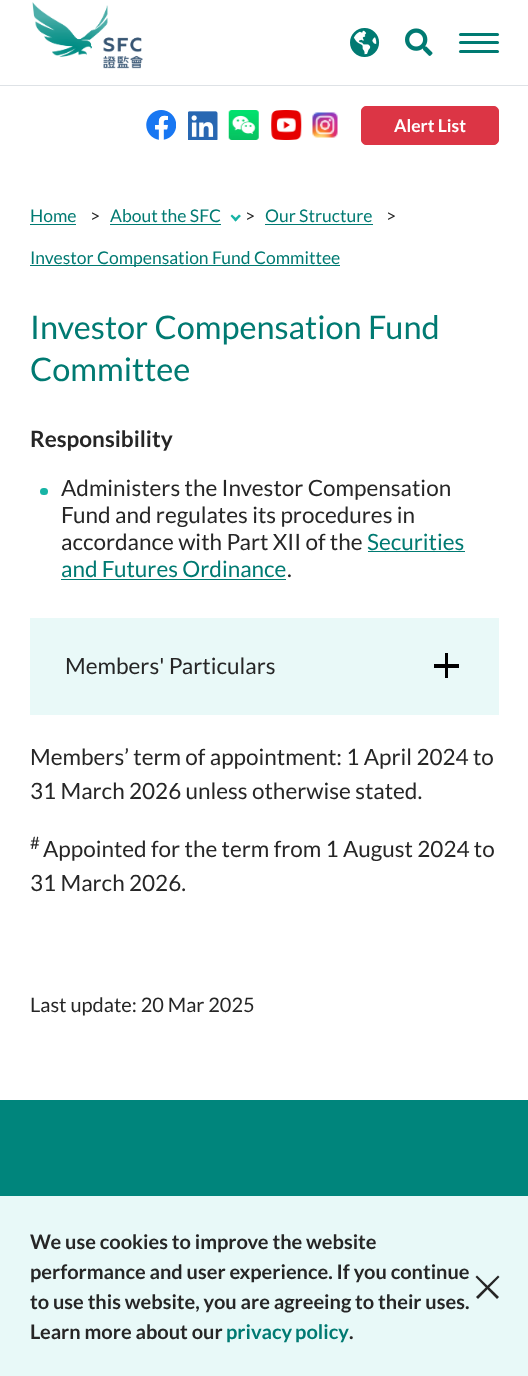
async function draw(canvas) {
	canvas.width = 528;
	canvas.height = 1376;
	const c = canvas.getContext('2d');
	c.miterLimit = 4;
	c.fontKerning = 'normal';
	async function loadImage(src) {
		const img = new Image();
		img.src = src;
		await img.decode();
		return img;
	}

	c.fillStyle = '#fff';
	c.fillRect(0, 0, 528, 1376);
	c.drawImage(await loadImage('img1.png'), 32, 2, 111, 67);
	c.drawImage(await loadImage('img2.png'), 350, 28, 30, 29);
	c.drawImage(await loadImage('img3.png'), 405, 28, 28, 28);
	c.fillStyle = '#007a72';
	c.beginPath();
	c.roundRect(459, 33, 40, 3, 1.5);
	c.fill();
	c.beginPath();
	c.roundRect(459, 41, 40, 3, 1.5);
	c.fill();
	c.beginPath();
	c.roundRect(459, 50, 40, 3, 1.5);
	c.fill();
	c.fillStyle = '#dee2e6';
	c.fillRect(0, 85, 528, 1);
	c.drawImage(await loadImage('img4.png'), 146, 110, 30, 30);
	c.drawImage(await loadImage('img5.png'), 188, 111, 30, 29);
	c.drawImage(await loadImage('img6.png'), 228, 110, 31, 30);
	c.drawImage(await loadImage('img7.png'), 271, 110, 31, 30);
	c.drawImage(await loadImage('img8.png'), 312, 112, 26, 26);
	c.fillStyle = '#dc3545';
	c.beginPath();
	c.roundRect(361.5, 106.5, 137, 38, 4.5);
	c.fill();
	c.strokeStyle = '#dc3545';
	c.stroke();
	c.font = 'bold 17.5px Lato';
	c.fillStyle = '#fff';
	c.fillText('Alert List', 394, 132);
	c.font = '17.5px Lato';
	c.fillStyle = '#007a72';
	c.fillText('Home', 30, 222);
	c.fillRect(30, 224, 46, 1);
	c.fillStyle = '#262626';
	c.fillText('>', 90, 222);
	c.fillStyle = '#007a72';
	c.fillText('About the SFC', 110, 222);
	c.fillRect(110, 224, 111, 1);
	c.fillStyle = '#17b4a5';
	c.beginPath();
	c.moveTo(239, 214.5);
	c.lineTo(241, 216);
	c.lineTo(235.5, 221.5);
	c.lineTo(234, 219.5);
	c.closePath();
	c.fill();
	c.beginPath();
	c.moveTo(232, 214.5);
	c.lineTo(237.5, 219.5);
	c.lineTo(235.5, 221.5);
	c.lineTo(230.5, 216);
	c.closePath();
	c.fill();
	c.fillStyle = '#262626';
	c.fillText('>', 245, 222);
	c.fillStyle = '#007a72';
	c.fillText('Our Structure', 265, 222);
	c.fillRect(265, 224, 108, 1);
	c.fillStyle = '#262626';
	c.fillText('>', 386, 222);
	c.fillStyle = '#007a72';
	c.fillRect(30, 265, 310, 1);
	c.fillText('Investor Compensation Fund Committee', 30, 264);
	c.font = '32.5px Lato';
	c.fillText('Investor Compensation Fund', 30, 339);
	c.fillText('Committee', 30, 381);
	c.font = 'bold 22.5px Lato';
	c.fillStyle = '#262626';
	c.fillText('Responsibility', 30, 447);
	c.fillStyle = '#17b4a5';
	c.beginPath();
	c.roundRect(40, 488, 8, 7, 3.5);
	c.fill();
	c.font = '22.5px Lato';
	c.fillStyle = '#262626';
	for (const [text, x, y] of [
		['Administers the Investor Compensation', 61, 496],
		['Fund and regulates its procedures in', 61, 523],
		['accordance with Part XII of the', 61, 550],
	]) {
		c.fillText(text, x, y);
	}
	c.fillStyle = '#007a72';
	c.fillText('Securities', 367, 550);
	c.fillRect(368, 551, 97, 1);
	c.fillText('and Futures Ordinance', 61, 577);
	c.fillRect(61, 579, 225, 1);
	c.fillStyle = '#262626';
	c.fillText('.', 287, 577);
	c.fillStyle = '#e9f9f8';
	c.fillRect(30, 618, 469, 97);
	c.fillStyle = '#262626';
	c.fillText('Members\' Particulars', 65, 674);
	c.fillStyle = '#000';
	c.fillRect(434, 664, 25, 4);
	c.fillRect(445, 653, 3, 25);
	c.fillStyle = '#262626';
	c.fillText('Members’ term of appointment: 1 April 2024 to', 30, 765);
	c.fillText('31 March 2026 unless otherwise stated.', 30, 799);
	c.font = '17px Lato';
	c.fillText('#', 30, 849);
	c.font = '22.5px Lato';
	c.fillText('Appointed for the term from 1 August 2024 to', 43, 857);
	c.fillText('31 March 2026.', 30, 891);
	c.font = '20px Lato';
	c.fillText('Last update: 20 Mar 2025', 30, 1012);
	c.fillStyle = '#00857c';
	c.fillRect(0, 1100, 528, 96);
	c.fillStyle = '#e8f9f8';
	c.fillRect(0, 1196, 528, 180);
	c.font = 'bold 20px Lato';
	c.fillStyle = '#262626';
	for (const [text, x, y] of [
		['We use cookies to improve the website', 30, 1249],
		['performance and user experience. If you continue', 30, 1279],
		['to use this website, you are agreeing to their uses.', 30, 1309],
		['Learn more about our', 30, 1339],
	]) {
		c.fillText(text, x, y);
	}
	c.wordSpacing = '-1px';
	c.fillStyle = '#007a72';
	c.fillText('privacy policy', 226, 1339);
	c.wordSpacing = '0px';
	c.fillStyle = '#262626';
	c.fillText('.', 349, 1339);
	c.beginPath();
	c.moveTo(477, 1275.5);
	c.lineTo(499, 1297);
	c.lineTo(497, 1299);
	c.lineTo(475.5, 1277);
	c.closePath();
	c.fill();
	c.beginPath();
	c.moveTo(476, 1297);
	c.lineTo(498, 1275.5);
	c.lineTo(499.5, 1277);
	c.lineTo(478, 1299);
	c.closePath();
	c.fill();
}

draw(document.querySelector('canvas'));
